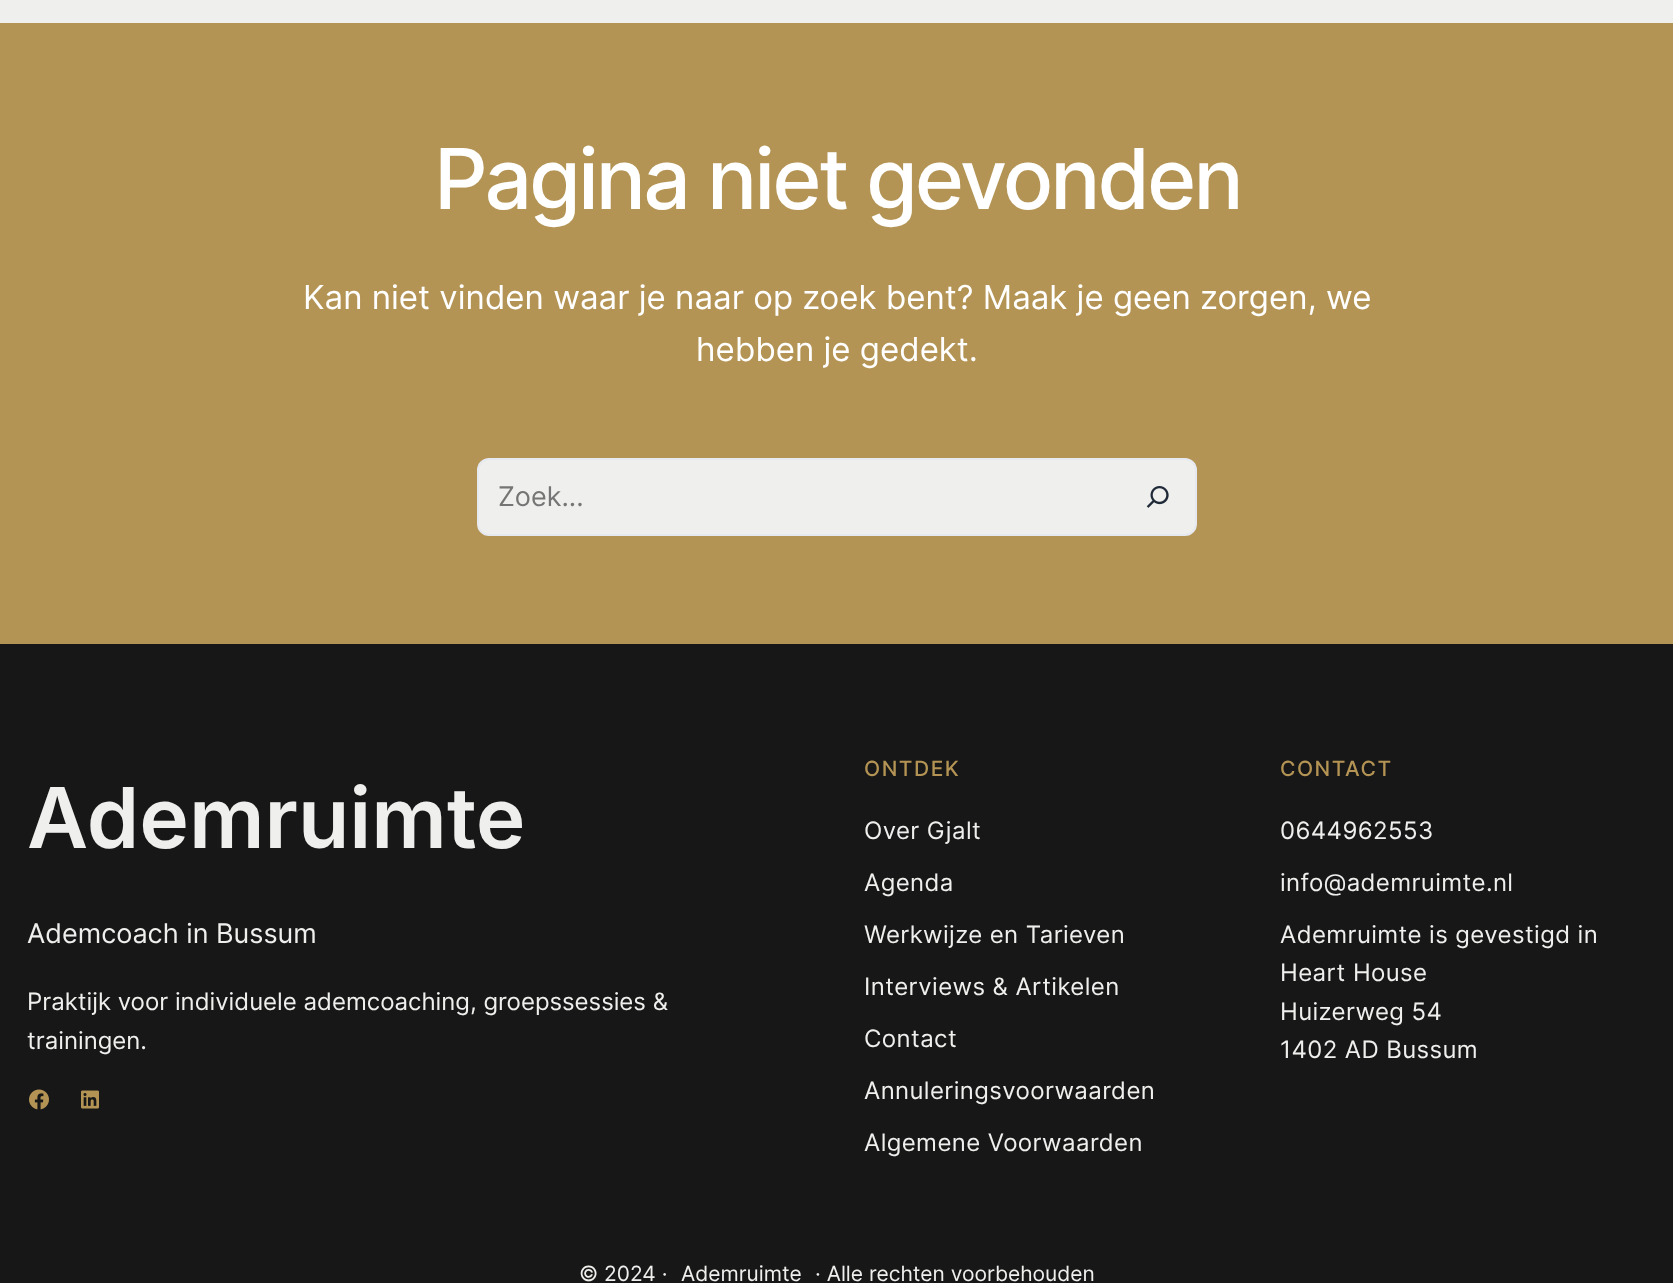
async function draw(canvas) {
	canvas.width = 1673;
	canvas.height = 1283;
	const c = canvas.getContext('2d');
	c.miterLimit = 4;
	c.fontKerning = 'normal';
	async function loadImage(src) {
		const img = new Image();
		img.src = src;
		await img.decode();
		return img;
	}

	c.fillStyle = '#efefed';
	c.fillRect(0, 0, 1673, 1283);
	c.fillStyle = '#b49454';
	c.fillRect(0, 23, 1673, 621);
	c.letterSpacing = '-3px';
	c.font = '500 84px Inter';
	c.fillStyle = '#fff';
	c.fillText('Pagina niet gevonden', 434, 209);
	c.letterSpacing = '0px';
	c.font = '33px Inter';
	c.fillText('Kan niet vinden waar je naar op zoek bent? Maak je geen zorgen, we', 303, 309);
	c.fillText('hebben je gedekt.', 696, 361);
	c.fillStyle = '#efefed';
	c.beginPath();
	c.roundRect(478, 459, 718, 76, 11);
	c.fill();
	c.strokeStyle = '#e6e9ef';
	c.lineWidth = 2;
	c.stroke();
	c.font = '27px Inter';
	c.fillStyle = '#757575';
	c.fillText('Zoek...', 498, 506);
	c.drawImage(await loadImage('img1.png'), 1146, 486, 23, 22);
	c.fillStyle = '#171717';
	c.fillRect(0, 644, 1673, 639);
	c.font = '600 84px Inter';
	c.fillStyle = '#efefed';
	c.fillText('Ademruimte', 27, 848);
	c.font = '27px Inter';
	c.fillText('Ademcoach in Bussum', 27, 943);
	c.font = '24px Inter';
	c.fillText('Praktijk voor individuele ademcoaching, groepssessies &', 27, 1010);
	c.fillText('trainingen.', 27, 1049);
	c.drawImage(await loadImage('img2.png'), 29, 1089, 20, 21);
	c.drawImage(await loadImage('img3.png'), 81, 1090, 18, 19);
	c.letterSpacing = '1.5px';
	c.font = '500 21px Inter';
	c.fillStyle = '#b49454';
	c.fillText('ONTDEK', 864, 776);
	c.letterSpacing = '0.4px';
	c.font = '24px Inter';
	c.fillStyle = '#efefed';
	for (const [text, x, y] of [
		['Over Gjalt', 864, 839],
		['Agenda', 864, 891],
		['Werkwijze en Tarieven', 864, 943],
		['Interviews & Artikelen', 864, 995],
		['Contact', 864, 1047],
		['Annuleringsvoorwaarden', 864, 1099],
		['Algemene Voorwaarden', 864, 1151],
	]) {
		c.fillText(text, x, y);
	}
	c.letterSpacing = '1.5px';
	c.font = '500 21px Inter';
	c.fillStyle = '#b49454';
	c.fillText('CONTACT', 1280, 776);
	c.letterSpacing = '0.4px';
	c.font = '24px Inter';
	c.fillStyle = '#efefed';
	for (const [text, x, y] of [
		['0644962553', 1280, 839],
		['info@ademruimte.nl', 1280, 891],
		['Ademruimte is gevestigd in', 1280, 943],
		['Heart House', 1280, 981],
		['Huizerweg 54', 1280, 1020],
		['1402 AD Bussum', 1280, 1058],
	]) {
		c.fillText(text, x, y);
	}
	c.letterSpacing = '0px';
	c.font = '21px Inter';
	for (const [text, x, y] of [
		['© 2024 ·', 579, 1281],
		['Ademruimte', 681, 1281],
		['· Alle rechten voorbehouden', 815, 1281],
	]) {
		c.fillText(text, x, y);
	}
}

draw(document.querySelector('canvas'));
